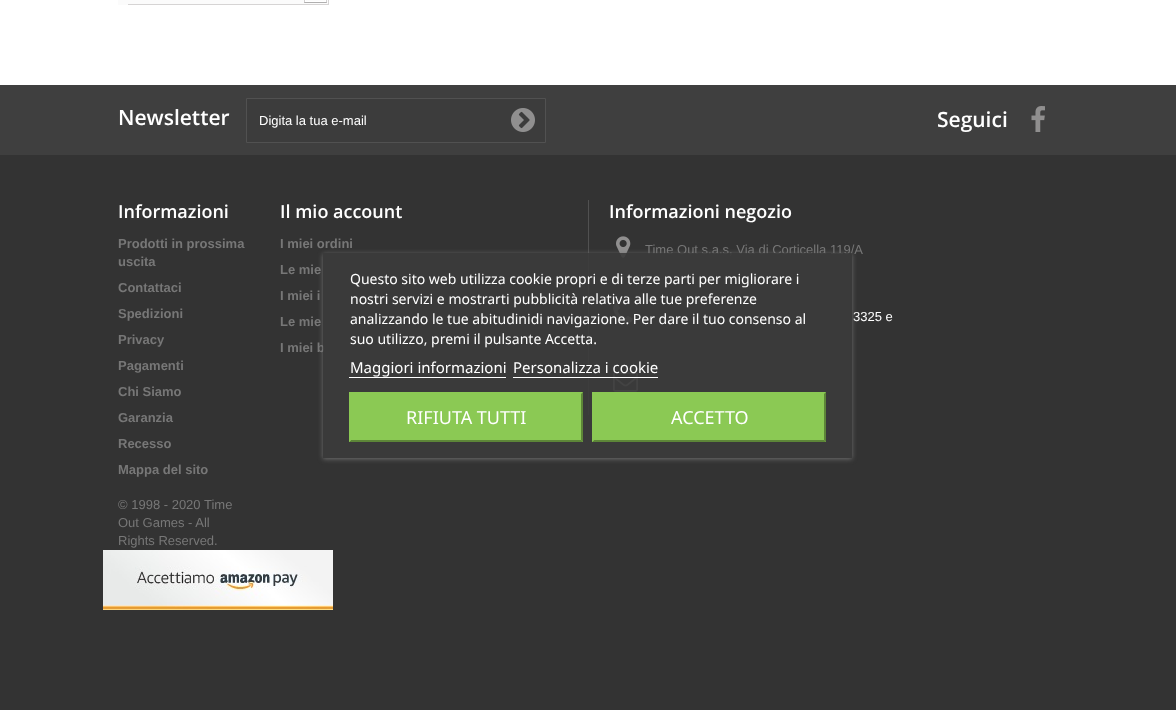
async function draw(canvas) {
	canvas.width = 1176;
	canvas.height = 710;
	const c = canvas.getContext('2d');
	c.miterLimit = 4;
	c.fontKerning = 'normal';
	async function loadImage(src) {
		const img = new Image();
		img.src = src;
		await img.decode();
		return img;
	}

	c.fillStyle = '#fff';
	c.fillRect(0, 0, 1176, 710);
	c.fillStyle = '#fbfbfb';
	c.fillRect(118, 0, 10, 5);
	c.drawImage(await loadImage('img1.png'), 128, 0, 201, 5);
	c.fillStyle = '#333';
	c.fillRect(0, 155, 1176, 555);
	c.fillStyle = '#3f3f3f';
	c.fillRect(0, 85, 1176, 70);
	c.font = '600 21px Open Sans';
	c.fillStyle = '#fff';
	c.fillText('Newsletter', 118, 125);
	c.fillStyle = '#3c3c3c';
	c.beginPath();
	c.rect(246.5, 98.5, 299, 44);
	c.fill();
	c.strokeStyle = '#515151';
	c.stroke();
	c.font = '13px Liberation Sans';
	c.fillStyle = '#fff';
	c.fillText('Digita la tua e-mail', 259, 125);
	c.drawImage(await loadImage('img2.png'), 511, 108, 24, 24);
	c.font = '600 21px Open Sans';
	c.fillText('Seguici', 937, 127);
	c.drawImage(await loadImage('img3.png'), 1031, 106, 14, 26);
	c.font = '600 18px Open Sans';
	c.fillText('Informazioni', 118, 218);
	c.font = 'bold 13px Liberation Sans';
	c.fillStyle = '#777';
	for (const [text, x, y] of [
		['Prodotti in prossima', 118, 248],
		['uscita', 118, 266],
		['Contattaci', 118, 292],
		['Spedizioni', 118, 318],
		['Privacy', 118, 344],
		['Pagamenti', 118, 370],
		['Chi Siamo', 118, 396],
		['Garanzia', 118, 422],
		['Recesso', 118, 448],
		['Mappa del sito', 118, 474],
	]) {
		c.fillText(text, x, y);
	}
	c.font = '13px Liberation Sans';
	for (const [text, x, y] of [
		['© 1998 - 2020 Time', 118, 509],
		['Out Games - All', 118, 527],
		['Rights Reserved.', 118, 545],
	]) {
		c.fillText(text, x, y);
	}
	c.font = '600 18px Open Sans';
	c.fillStyle = '#fff';
	c.fillText('Il mio account', 280, 218);
	c.font = 'bold 13px Liberation Sans';
	c.fillStyle = '#777';
	for (const [text, x, y] of [
		['I miei ordini', 280, 248],
		['Le mie', 280, 274],
		['I miei i', 280, 300],
		['Le mie', 280, 326],
		['I miei b', 280, 352],
	]) {
		c.fillText(text, x, y);
	}
	c.fillStyle = '#515151';
	c.fillRect(588, 200, 1, 215);
	c.font = '600 18px Open Sans';
	c.fillStyle = '#fff';
	c.fillText('Informazioni negozio', 609, 218);
	c.drawImage(await loadImage('img4.png'), 616, 236, 15, 22);
	c.font = '13px Liberation Sans';
	c.fillStyle = '#777';
	c.fillText('Time Out s.a.s, Via di Corticella 119/A', 645, 254);
	c.drawImage(await loadImage('img5.png'), 613, 303, 20, 20);
	c.fillStyle = '#fff';
	c.fillText('3325 e', 853, 321);
	c.drawImage(await loadImage('img6.png'), 613, 372, 25, 20);
	c.save();
	c.beginPath();
	c.moveTo(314, 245);
	c.lineTo(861, 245);
	c.lineTo(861, 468);
	c.lineTo(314, 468);
	c.closePath();
	c.moveTo(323, 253);
	c.lineTo(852, 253);
	c.lineTo(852, 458);
	c.lineTo(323, 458);
	c.closePath();
	c.clip('evenodd');
	c.fillStyle = '#707070';
	c.filter = 'blur(2.5px)';
	c.beginPath();
	c.rect(323, 254, 529, 205);
	c.fill();
	c.filter = 'none';
	c.restore();
	c.fillStyle = '#3b3b3be6';
	c.fillRect(323, 253, 529, 205);
	c.font = '14px Noto Sans';
	c.fillStyle = '#fff';
	for (const [text, x, y] of [
		['Questo sito web utilizza cookie propri e di terze parti per migliorare i', 350, 284],
		['nostri servizi e mostrarti pubblicità relativa alle tue preferenze', 350, 304],
		['analizzando le tue abitudinidi navigazione. Per dare il tuo consenso al', 350, 324],
		['suo utilizzo, premi il pulsante Accetta.', 350, 344],
	]) {
		c.fillText(text, x, y);
	}
	c.font = '15px Noto Sans';
	c.fillText('Maggiori informazioni', 350, 373);
	c.fillRect(349, 377, 157, 1);
	c.fillText('Personalizza i cookie', 513, 373);
	c.fillRect(513, 377, 145, 1);
	c.fillStyle = '#8bc954';
	c.fillRect(349, 392, 234, 50);
	c.fillStyle = '#5d8638';
	c.beginPath();
	c.moveTo(583, 392);
	c.lineTo(583, 442);
	c.lineTo(581, 440);
	c.lineTo(581, 394);
	c.closePath();
	c.fill();
	c.beginPath();
	c.moveTo(583, 442);
	c.lineTo(349, 442);
	c.lineTo(351, 440);
	c.lineTo(581, 440);
	c.closePath();
	c.fill();
	c.fillStyle = '#8bc954';
	c.beginPath();
	c.moveTo(349, 442);
	c.lineTo(349, 392);
	c.lineTo(351, 394);
	c.lineTo(351, 440);
	c.closePath();
	c.fill();
	c.font = '18px Noto Sans';
	c.fillStyle = '#fff';
	c.fillText('RIFIUTA TUTTI', 406, 424);
	c.fillStyle = '#8bc954';
	c.fillRect(592, 392, 234, 50);
	c.fillStyle = '#5d8638';
	c.beginPath();
	c.moveTo(826, 392);
	c.lineTo(826, 442);
	c.lineTo(824, 440);
	c.lineTo(824, 394);
	c.closePath();
	c.fill();
	c.beginPath();
	c.moveTo(826, 442);
	c.lineTo(592, 442);
	c.lineTo(594, 440);
	c.lineTo(824, 440);
	c.closePath();
	c.fill();
	c.fillStyle = '#8bc954';
	c.beginPath();
	c.moveTo(592, 442);
	c.lineTo(592, 392);
	c.lineTo(594, 394);
	c.lineTo(594, 440);
	c.closePath();
	c.fill();
	c.fillStyle = '#fff';
	c.fillText('ACCETTO', 671, 424);
	c.drawImage(await loadImage('img7.png'), 103, 550, 230, 60);
}

draw(document.querySelector('canvas'));
